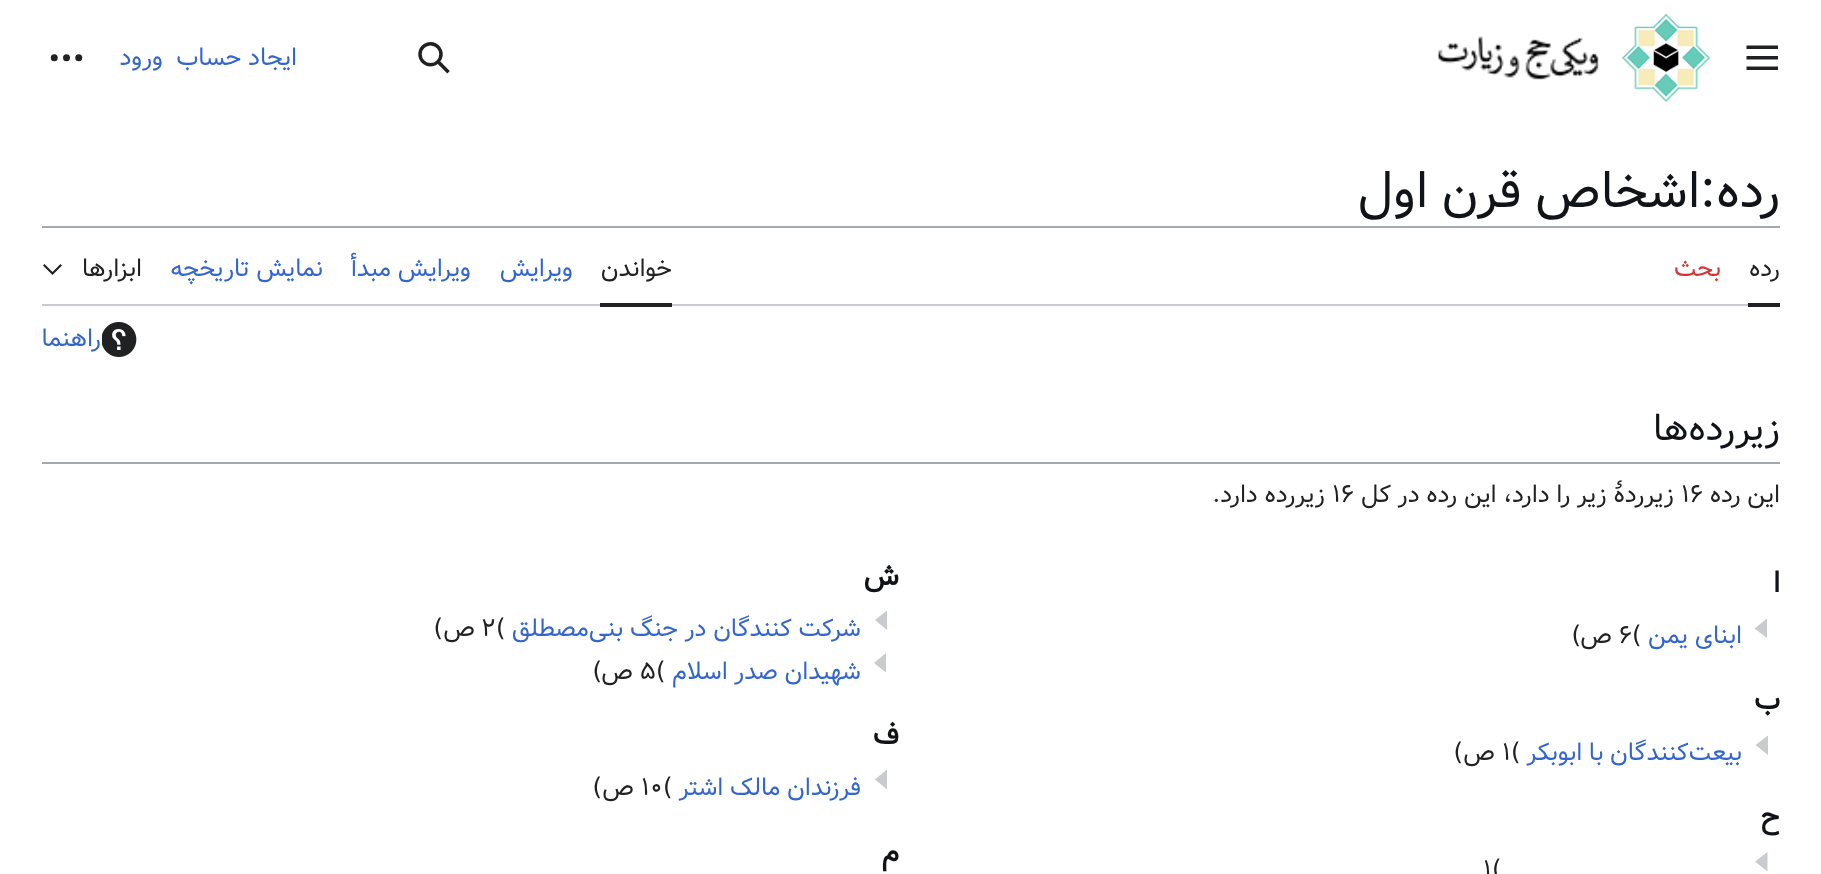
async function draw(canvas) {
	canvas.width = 1821;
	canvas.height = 874;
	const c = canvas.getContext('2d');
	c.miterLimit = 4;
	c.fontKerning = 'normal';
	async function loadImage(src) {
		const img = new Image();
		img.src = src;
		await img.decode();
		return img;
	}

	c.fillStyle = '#fff';
	c.fillRect(0, 0, 1821, 874);
	c.drawImage(await loadImage('img1.png'), 1746, 45, 32, 25);
	c.drawImage(await loadImage('img2.png'), 1622, 14, 88, 88);
	c.drawImage(await loadImage('img3.png'), 1438, 36, 161, 44);
	c.drawImage(await loadImage('img4.png'), 418, 42, 32, 32);
	c.direction = 'rtl';
	c.font = '24.5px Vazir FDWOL';
	c.fillStyle = '#36c';
	c.fillText('ایجاد حساب', 297, 65);
	c.fillText('ورود', 163, 65);
	c.drawImage(await loadImage('img5.png'), 50, 54, 33, 8);
	c.font = '50.5px Vazir FDWOL';
	c.fillStyle = '#101418';
	c.fillText('رده', 1780, 207);
	c.direction = 'ltr';
	c.fillText(':', 1700, 207);
	c.direction = 'rtl';
	c.fillText('اشخاص قرن اول', 1700, 207);
	c.fillStyle = '#a2a9b1';
	c.fillRect(42, 226, 1738, 2);
	c.fillStyle = '#c8ccd1';
	c.beginPath();
	c.moveTo(42, 304);
	c.lineTo(42, 306);
	c.lineTo(1780, 306);
	c.lineTo(1780, 229);
	c.lineTo(1780, 304);
	c.closePath();
	c.fill();
	c.fillStyle = '#202122';
	c.fillRect(1748, 303, 32, 4);
	c.font = '24.5px Vazir FDWOL';
	c.fillText('رده', 1780, 276);
	c.fillStyle = '#d73333';
	c.fillText('بحث', 1721, 276);
	c.fillStyle = '#202122';
	c.fillRect(600, 303, 72, 4);
	c.fillText('خواندن', 672, 276);
	c.fillStyle = '#36c';
	for (const [text, x, y] of [
		['ویرایش', 573, 276],
		['ویرایش مبدأ', 471, 276],
		['نمایش تاریخچه', 323, 276],
	]) {
		c.fillText(text, x, y);
	}
	c.fillStyle = '#202122';
	c.fillText('ابزارها', 142, 276);
	c.beginPath();
	c.moveTo(60.5, 264);
	c.lineTo(52.5, 272);
	c.lineTo(44.5, 264);
	c.lineTo(43, 265.5);
	c.lineTo(52.5, 275);
	c.lineTo(62, 265.5);
	c.closePath();
	c.fill();
	c.drawImage(await loadImage('img6.png'), 102, 322, 35, 35);
	c.fillStyle = '#36c';
	c.fillText('راهنما', 101, 346);
	c.fillStyle = '#a2a9b1';
	c.fillRect(42, 462, 1738, 2);
	c.font = '37px Vazir FDWOL';
	c.fillStyle = '#101418';
	c.fillText('زیررده‌ها', 1780, 440);
	c.font = '24.5px Vazir FDWOL';
	c.fillStyle = '#202122';
	c.fillText('این رده', 1780, 502);
	c.direction = 'ltr';
	c.fillText('۱۶', 1681, 502);
	c.direction = 'rtl';
	c.fillText('زیرردۀ زیر را دارد، این رده در کل', 1674, 502);
	c.direction = 'ltr';
	c.fillText('۱۶', 1332, 502);
	c.direction = 'rtl';
	c.fillText('زیررده دارد.', 1325, 502);
	c.font = 'bold 29px Vazir FDWOL';
	c.fillStyle = '#101418';
	c.fillText('ا', 1780, 592);
	c.fillStyle = '#c8ccd1';
	c.beginPath();
	c.moveTo(1754.5, 628.5);
	c.lineTo(1767, 618.5);
	c.lineTo(1767, 638);
	c.closePath();
	c.fill();
	c.font = '24.5px Vazir FDWOL';
	c.fillStyle = '#36c';
	c.fillText('ابنای یمن', 1742, 643);
	c.direction = 'ltr';
	c.font = '24.5px DejaVu Sans';
	c.fillStyle = '#202122';
	c.fillText('(', 1632, 643);
	c.font = '24.5px Vazir FDWOL';
	c.fillText('۶', 1619, 643);
	c.direction = 'rtl';
	c.fillText('ص', 1612, 643);
	c.font = '24.5px DejaVu Sans';
	c.fillText(')', 1581, 643);
	c.font = 'bold 29px Vazir FDWOL';
	c.fillStyle = '#101418';
	c.fillText('ش', 899, 585);
	c.fillStyle = '#c8ccd1';
	c.beginPath();
	c.moveTo(875, 620);
	c.lineTo(887, 610.5);
	c.lineTo(887, 630);
	c.closePath();
	c.moveTo(874, 663);
	c.lineTo(886, 653);
	c.lineTo(886, 672.5);
	c.closePath();
	c.fill();
	c.font = '24.5px Vazir FDWOL';
	c.fillStyle = '#36c';
	c.fillText('شرکت کنندگان در جنگ بنی‌مصطلق', 861, 636);
	c.direction = 'ltr';
	c.font = '24.5px DejaVu Sans';
	c.fillStyle = '#202122';
	c.fillText('(', 496, 636);
	c.font = '24.5px Vazir FDWOL';
	c.fillText('۲', 481, 636);
	c.direction = 'rtl';
	c.fillText('ص', 475, 636);
	c.font = '24.5px DejaVu Sans';
	c.fillText(')', 443, 636);
	c.font = '24.5px Vazir FDWOL';
	c.fillStyle = '#36c';
	c.fillText('شهیدان صدر اسلام', 861, 679);
	c.direction = 'ltr';
	c.font = '24.5px DejaVu Sans';
	c.fillStyle = '#202122';
	c.fillText('(', 656, 679);
	c.font = '24.5px Vazir FDWOL';
	c.fillText('۵', 640, 679);
	c.direction = 'rtl';
	c.fillText('ص', 633, 679);
	c.font = '24.5px DejaVu Sans';
	c.fillText(')', 602, 679);
	c.font = 'bold 29px Vazir FDWOL';
	c.fillStyle = '#101418';
	c.fillText('ب', 1780, 709);
	c.fillStyle = '#c8ccd1';
	c.beginPath();
	c.moveTo(1755.5, 745);
	c.lineTo(1768, 735.5);
	c.lineTo(1768, 755);
	c.closePath();
	c.fill();
	c.font = '24.5px Vazir FDWOL';
	c.fillStyle = '#36c';
	c.fillText('بیعت‌کنندگان با ابوبکر', 1742, 760);
	c.direction = 'ltr';
	c.font = '24.5px DejaVu Sans';
	c.fillStyle = '#202122';
	c.fillText('(', 1511, 760);
	c.font = '24.5px Vazir FDWOL';
	c.fillText('۱', 1502, 760);
	c.direction = 'rtl';
	c.fillText('ص', 1495, 760);
	c.font = '24.5px DejaVu Sans';
	c.fillText(')', 1463, 760);
	c.font = 'bold 29px Vazir FDWOL';
	c.fillStyle = '#101418';
	c.fillText('ف', 899, 744);
	c.fillStyle = '#c8ccd1';
	c.beginPath();
	c.moveTo(875, 779.5);
	c.lineTo(887, 769.5);
	c.lineTo(887, 789.5);
	c.closePath();
	c.fill();
	c.font = '24.5px Vazir FDWOL';
	c.fillStyle = '#36c';
	c.fillText('فرزندان مالک اشتر', 861, 795);
	c.direction = 'ltr';
	c.font = '24.5px DejaVu Sans';
	c.fillStyle = '#202122';
	c.fillText('(', 663, 795);
	c.font = '24.5px Vazir FDWOL';
	c.fillText('۱۰', 641, 795);
	c.direction = 'rtl';
	c.fillText('ص', 634, 795);
	c.font = '24.5px DejaVu Sans';
	c.fillText(')', 602, 795);
	c.font = 'bold 29px Vazir FDWOL';
	c.fillStyle = '#101418';
	c.fillText('ح', 1780, 826);
	c.fillStyle = '#c8ccd1';
	c.beginPath();
	c.moveTo(1755, 861.5);
	c.lineTo(1767.5, 852);
	c.lineTo(1767.5, 871.5);
	c.closePath();
	c.fill();
	c.direction = 'ltr';
	c.font = '24.5px DejaVu Sans';
	c.fillStyle = '#202122';
	c.fillText('(', 1492, 877);
	c.font = '24.5px Vazir FDWOL';
	c.fillText('۱', 1483, 877);
	c.direction = 'rtl';
	c.font = 'bold 29px Vazir FDWOL';
	c.fillStyle = '#101418';
	c.fillText('م', 899, 861);
}

draw(document.querySelector('canvas'));
